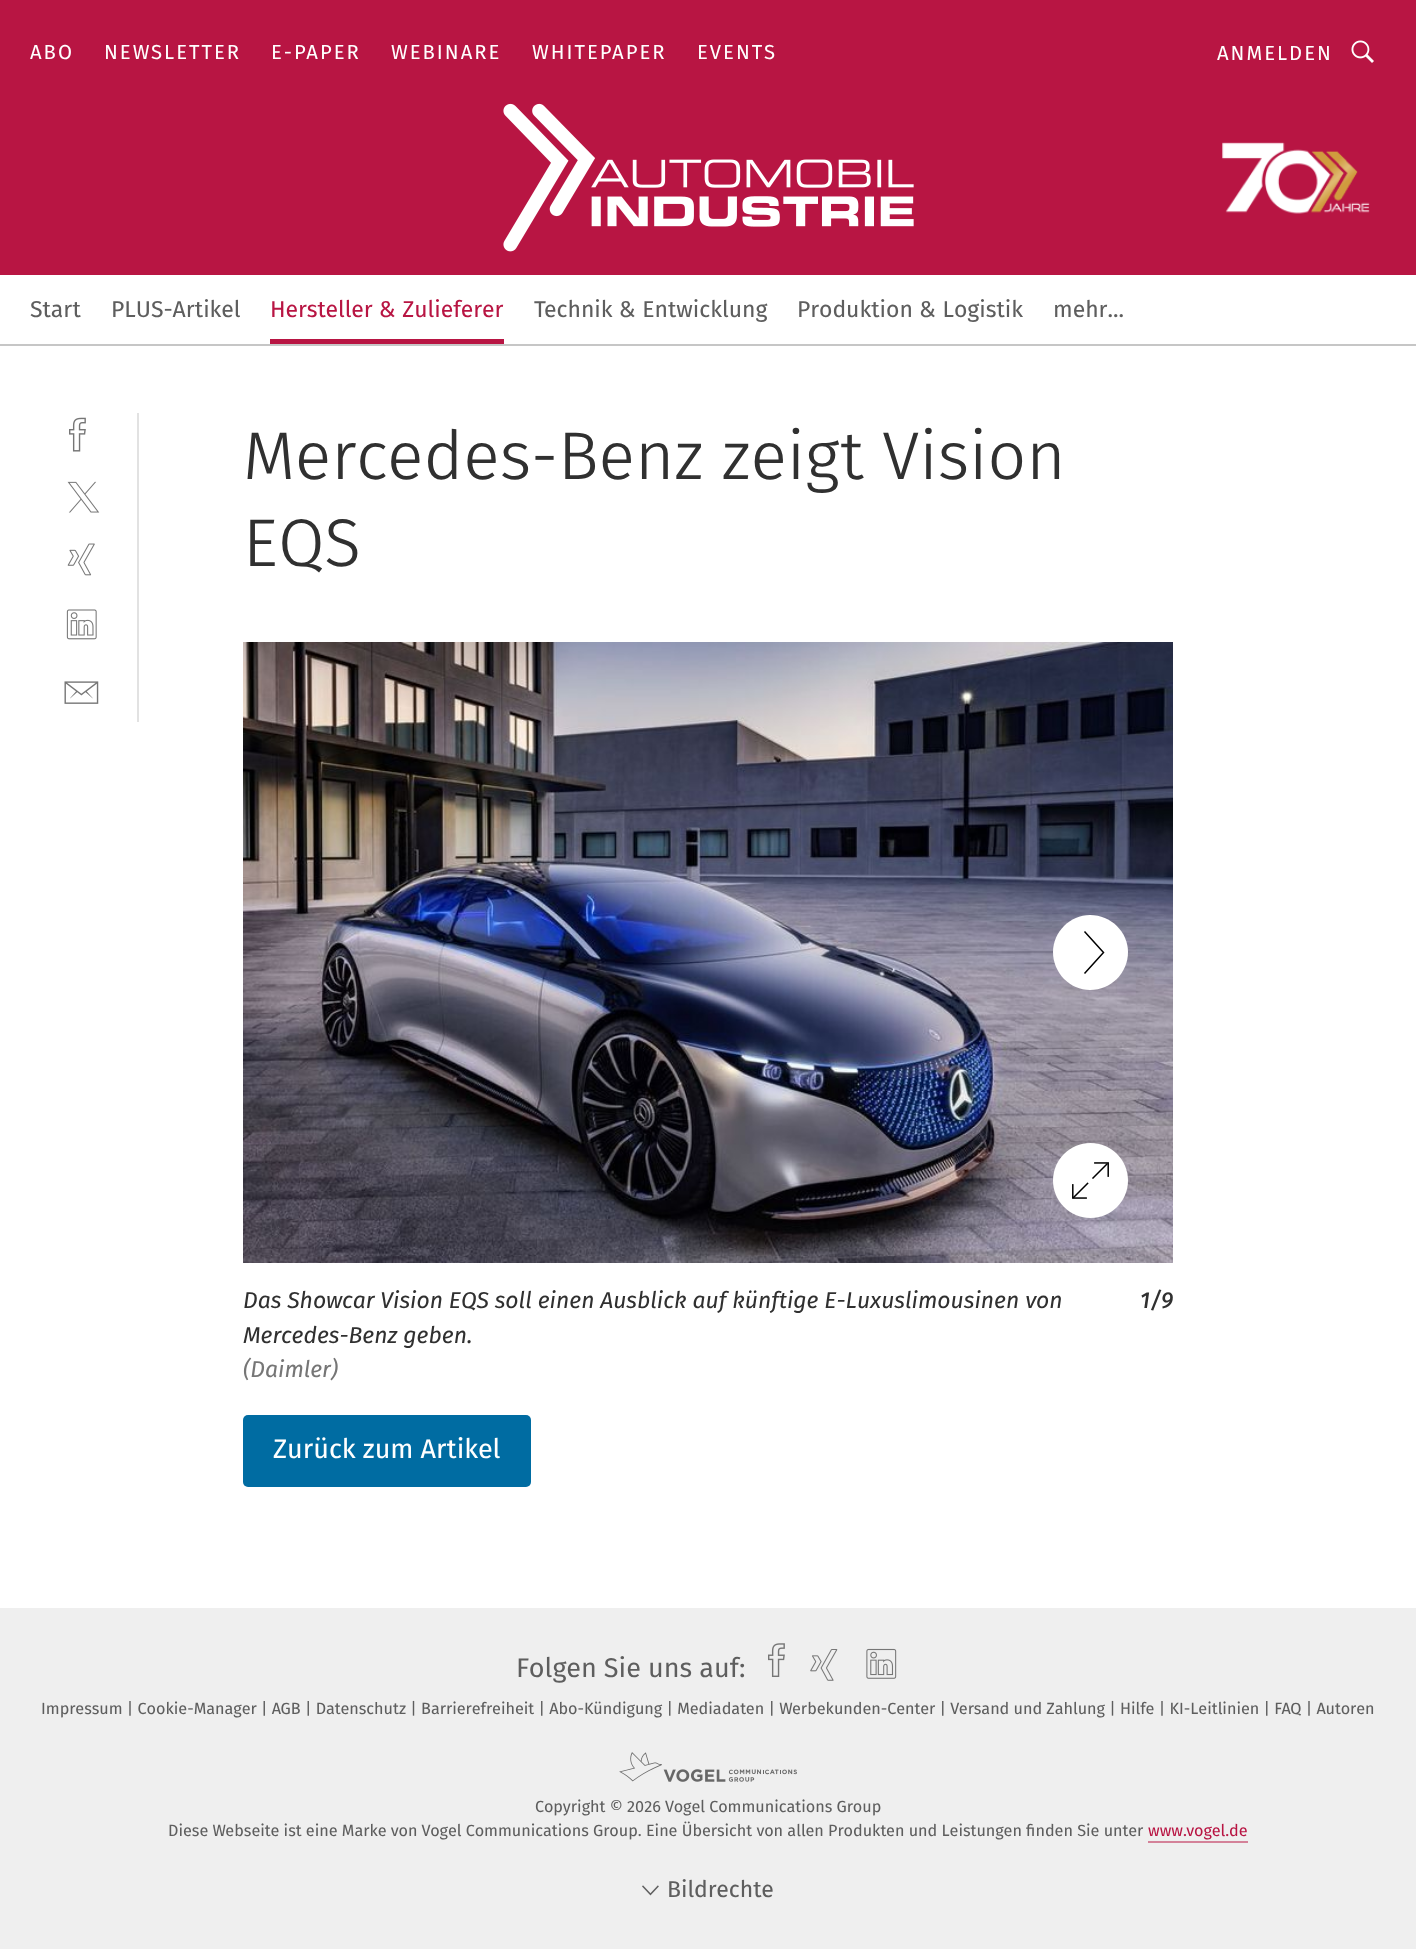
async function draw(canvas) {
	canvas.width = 1416;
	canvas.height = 1949;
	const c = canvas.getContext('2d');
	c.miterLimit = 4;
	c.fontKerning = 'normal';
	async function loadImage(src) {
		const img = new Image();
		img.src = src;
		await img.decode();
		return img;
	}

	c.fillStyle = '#fff';
	c.fillRect(0, 0, 1416, 1949);
	c.fillStyle = '#c6c6c6';
	c.fillRect(0, 344, 1416, 2);
	c.fillStyle = '#b81543';
	c.fillRect(0, 0, 1416, 275);
	c.letterSpacing = '2px';
	c.font = '20.25px "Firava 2"';
	c.fillStyle = '#fff';
	for (const [text, x, y] of [
		['ABO', 30, 59],
		['NEWSLETTER', 104, 59],
		['E-PAPER', 271, 59],
		['WEBINARE', 391, 59],
		['WHITEPAPER', 532, 59],
		['EVENTS', 697, 59],
		['ANMELDEN', 1217, 60],
	]) {
		c.fillText(text, x, y);
	}
	c.drawImage(await loadImage('img1.png'), 1351, 40, 23, 23);
	c.drawImage(await loadImage('img2.png'), 503, 103, 411, 149);
	c.drawImage(await loadImage('img3.png'), 1222, 142, 148, 72);
	c.letterSpacing = '0px';
	c.font = '22.95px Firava';
	c.fillStyle = '#5e5e5e';
	c.fillText('Start', 30, 317);
	c.fillText('PLUS-Artikel', 111, 317);
	c.fillStyle = '#b81543';
	c.fillRect(270, 339, 234, 5);
	c.fillText('Hersteller & Zulieferer', 270, 317);
	c.fillStyle = '#5e5e5e';
	for (const [text, x, y] of [
		['Technik & Entwicklung', 534, 317],
		['Produktion & Logistik', 797, 317],
		['mehr...', 1053, 317],
	]) {
		c.fillText(text, x, y);
	}
	c.fillStyle = '#e2e2e2';
	c.fillRect(137, 413, 2, 309);
	c.drawImage(await loadImage('img4.png'), 69, 417, 17, 35);
	c.drawImage(await loadImage('img5.png'), 67, 481, 33, 32);
	c.drawImage(await loadImage('img6.png'), 67, 543, 28, 33);
	c.drawImage(await loadImage('img7.png'), 66, 609, 31, 31);
	c.drawImage(await loadImage('img8.png'), 64, 681, 35, 23);
	c.font = '300 67.5px Firava';
	c.fillStyle = '#303030';
	c.fillText('Mercedes-Benz zeigt Vision', 243, 479);
	c.fillText('EQS', 243, 566);
	c.drawImage(await loadImage('img9.png'), 243, 642, 930, 621);
	c.fillStyle = '#fff';
	c.beginPath();
	c.moveTo(1090, 915);
	c.bezierCurveTo(1070, 915, 1053, 932, 1053, 952);
	c.bezierCurveTo(1053, 973, 1070, 990, 1090, 990);
	c.bezierCurveTo(1111, 990, 1128, 973, 1128, 952);
	c.bezierCurveTo(1128, 932, 1111, 915, 1090, 915);
	c.fill();
	c.beginPath();
	c.moveTo(1084.5, 973.5);
	c.lineTo(1103.5, 952.5);
	c.lineTo(1084.5, 931.5);
	c.strokeStyle = '#000';
	c.lineWidth = 1.5;
	c.stroke();
	c.drawImage(await loadImage('img10.png'), 1053, 1143, 75, 75);
	c.font = 'italic 22.95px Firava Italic';
	c.fillStyle = '#303030';
	c.fillText('Das Showcar Vision EQS soll einen Ausblick auf künftige E-Luxuslimousinen von', 243, 1308);
	c.fillText('Mercedes-Benz geben.', 243, 1343);
	c.fillStyle = '#767676';
	c.fillText('(Daimler)', 243, 1377);
	c.font = 'italic 500 22.95px Firava Italic';
	c.fillStyle = '#303030';
	c.fillText('1/9', 1140, 1308);
	c.fillStyle = '#006ca2';
	c.beginPath();
	c.roundRect(243, 1415, 288, 72, 5);
	c.fill();
	c.font = '27px Firava';
	c.fillStyle = '#fff';
	c.fillText('Zurück zum Artikel', 273, 1458);
	c.fillStyle = '#efefef';
	c.fillRect(0, 1608, 1416, 341);
	c.font = '27px "Firava 2"';
	c.fillStyle = '#5e5e5e';
	c.fillText('Folgen Sie uns auf:', 516, 1677);
	c.drawImage(await loadImage('img11.png'), 768, 1643, 17, 34);
	c.drawImage(await loadImage('img12.png'), 810, 1649, 28, 32);
	c.drawImage(await loadImage('img13.png'), 866, 1648, 31, 31);
	c.font = '16.2px Firava';
	c.fillText('Impressum | Cookie-Manager | AGB | Datenschutz | Barrierefreiheit | Abo-Kündigung | Mediadaten | Werbekunden-Center | Versand und Zahlung | Hilfe | KI-Leitlinien | FAQ | Autoren', 41, 1714);
	c.drawImage(await loadImage('img14.png'), 619, 1752, 178, 30);
	c.fillText('Copyright © 2026 Vogel Communications Group', 535, 1812);
	c.fillText('Diese Webseite ist eine Marke von Vogel Communications Group. Eine Übersicht von allen Produkten und Leistungen finden Sie unter', 168, 1836);
	c.fillStyle = '#b81543';
	c.fillText('www.vogel.de', 1148, 1836);
	c.fillStyle = '#d48299';
	c.fillRect(1148, 1841, 100, 2);
	c.drawImage(await loadImage('img15.png'), 642, 1885, 17, 11);
	c.font = '22.95px Firava';
	c.fillStyle = '#5e5e5e';
	c.fillText('Bildrechte', 667, 1897);
}

draw(document.querySelector('canvas'));
